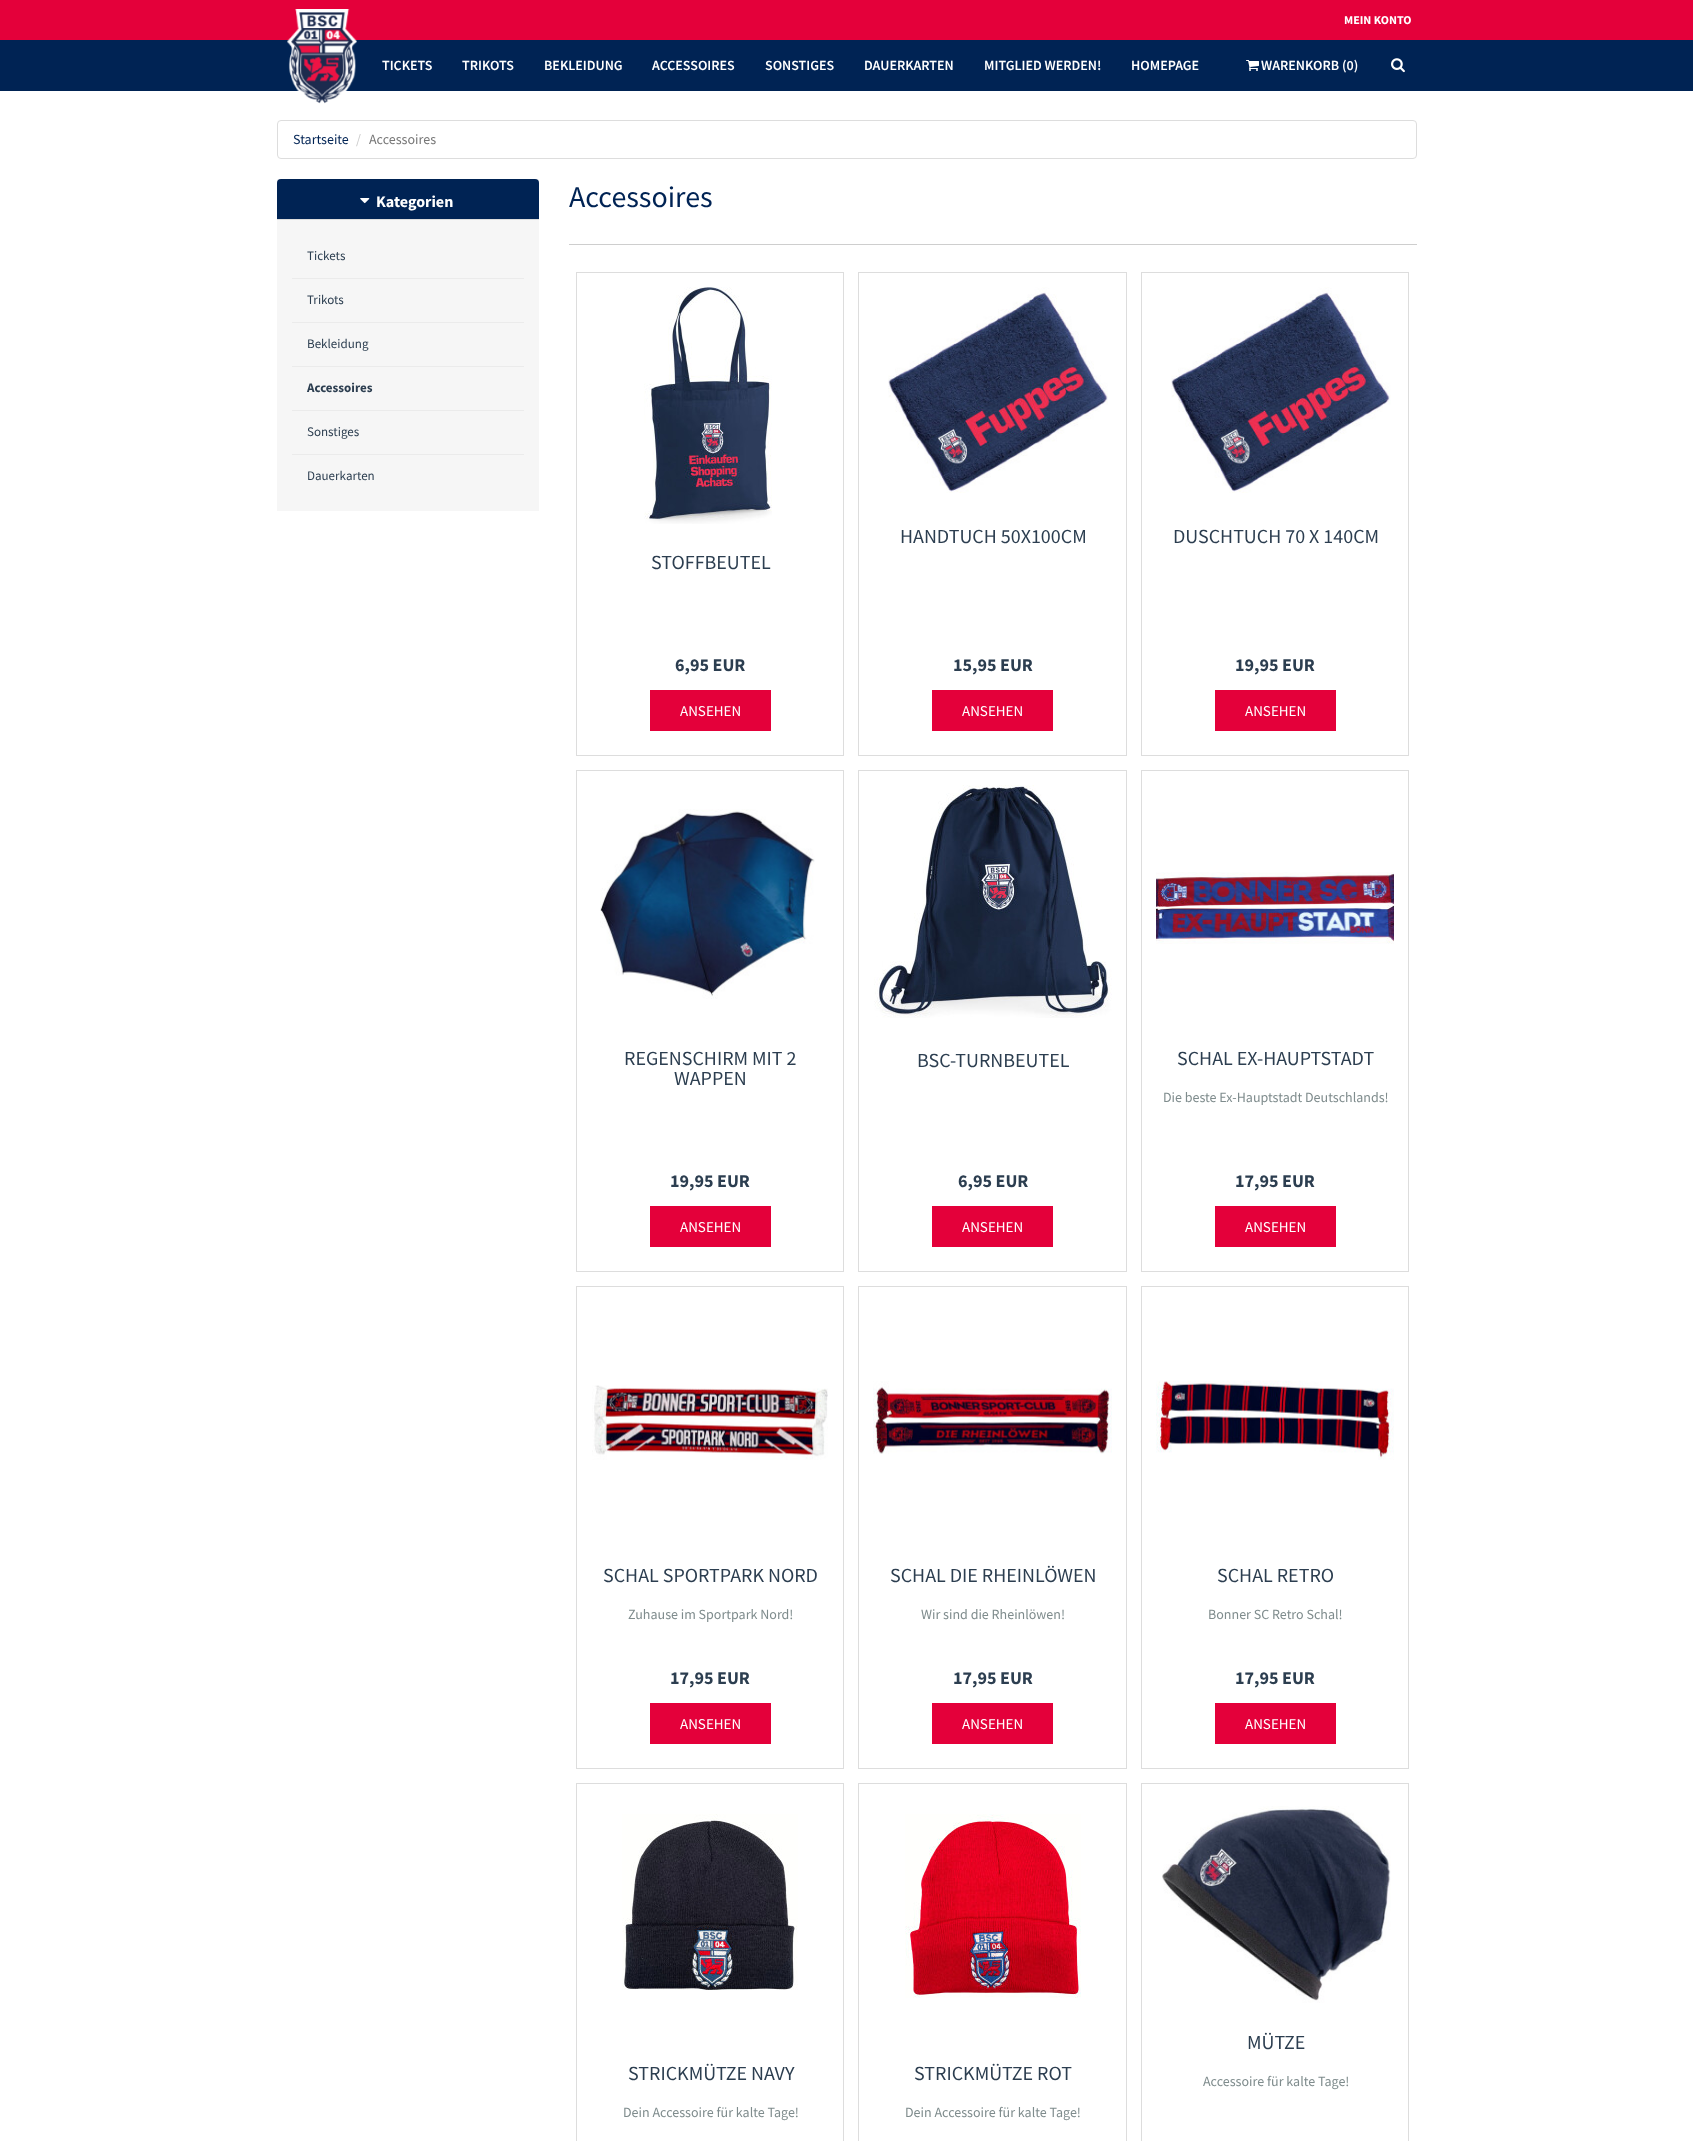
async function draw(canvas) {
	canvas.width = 1693;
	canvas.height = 2141;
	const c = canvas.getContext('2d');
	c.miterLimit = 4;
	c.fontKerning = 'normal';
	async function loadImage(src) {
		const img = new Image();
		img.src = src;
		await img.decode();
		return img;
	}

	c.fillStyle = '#fff';
	c.fillRect(0, 0, 1693, 2141);
	c.fillStyle = '#002354';
	c.fillRect(0, 40, 1693, 51);
	c.fillStyle = '#e4003a';
	c.fillRect(0, 0, 1693, 40);
	c.font = 'bold 12px Source Sans Pro';
	c.fillStyle = '#fff';
	c.fillText('MEIN KONTO', 1344, 24);
	c.drawImage(await loadImage('img1.png'), 287, 9, 70, 95);
	c.font = '600 14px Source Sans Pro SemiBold';
	for (const [text, x, y] of [
		['TICKETS', 382, 70],
		['TRIKOTS', 462, 70],
		['BEKLEIDUNG', 544, 70],
		['ACCESSOIRES', 652, 70],
		['SONSTIGES', 765, 70],
		['DAUERKARTEN', 864, 70],
		['MITGLIED WERDEN!', 984, 70],
		['HOMEPAGE', 1131, 70],
	]) {
		c.fillText(text, x, y);
	}
	c.drawImage(await loadImage('img2.png'), 1246, 60, 13, 11);
	c.fillText('WARENKORB (0)', 1261, 70);
	c.drawImage(await loadImage('img3.png'), 1391, 58, 14, 15);
	c.beginPath();
	c.roundRect(277.5, 120.5, 1139, 38, 3.5);
	c.strokeStyle = '#ddd';
	c.stroke();
	c.font = '14px Source Sans Pro';
	c.fillStyle = '#002354';
	c.fillText('Startseite', 293, 144);
	c.fillStyle = '#ccc';
	c.fillText('/', 356, 144);
	c.fillStyle = '#777';
	c.fillText('Accessoires', 369, 144);
	c.fillStyle = '#f6f6f6';
	c.fillRect(277, 179, 262, 332);
	c.fillStyle = '#002354';
	c.beginPath();
	c.roundRect(277, 179, 262, 40, [4, 4, 0, 0]);
	c.fill();
	c.drawImage(await loadImage('img4.png'), 360, 198, 10, 6);
	c.font = 'bold 16px Source Sans Pro';
	c.fillStyle = '#fff';
	c.fillText('Kategorien', 376, 207);
	c.fillStyle = '#ddd';
	c.fillRect(277, 219, 262, 1);
	c.font = '13px Source Sans Pro';
	c.fillStyle = '#2c3e50';
	c.fillText('Tickets', 307, 260);
	c.fillStyle = '#ebebeb';
	c.fillRect(292, 278, 232, 1);
	c.fillStyle = '#2c3e50';
	c.fillText('Trikots', 307, 304);
	c.fillStyle = '#ebebeb';
	c.fillRect(292, 322, 232, 1);
	c.fillStyle = '#2c3e50';
	c.fillText('Bekleidung', 307, 348);
	c.fillStyle = '#ebebeb';
	c.fillRect(292, 366, 232, 1);
	c.font = 'bold 13px Source Sans Pro';
	c.fillStyle = '#2c3e50';
	c.fillText('Accessoires', 307, 392);
	c.fillStyle = '#ebebeb';
	c.fillRect(292, 410, 232, 1);
	c.font = '13px Source Sans Pro';
	c.fillStyle = '#2c3e50';
	c.fillText('Sonstiges', 307, 436);
	c.fillStyle = '#ebebeb';
	c.fillRect(292, 454, 232, 1);
	c.fillStyle = '#2c3e50';
	c.fillText('Dauerkarten', 307, 480);
	c.font = '30px Source Sans Pro';
	c.fillStyle = '#002354';
	c.fillText('Accessoires', 569, 207);
	c.fillStyle = '#cecece';
	c.fillRect(569, 244, 848, 1);
	c.strokeRect(576.5, 272.5, 267, 483);
	c.drawImage(await loadImage('img5.png'), 644, 287, 128, 237);
	c.font = '20px Source Sans Pro';
	c.fillStyle = '#2c3e50';
	c.fillText('STOFFBEUTEL', 651, 569);
	c.font = 'bold 18px Source Sans Pro';
	c.fillText('6,95 EUR', 675, 671);
	c.fillStyle = '#e4003a';
	c.fillRect(650, 690, 121, 41);
	c.font = '15px Source Sans Pro';
	c.fillStyle = '#fff';
	c.fillText('ANSEHEN', 680, 716);
	c.strokeRect(858.5, 272.5, 268, 483);
	c.drawImage(await loadImage('img6.png'), 888, 287, 220, 206);
	c.font = '20px Source Sans Pro';
	c.fillStyle = '#2c3e50';
	c.fillText('HANDTUCH 50X100CM', 900, 543);
	c.font = 'bold 18px Source Sans Pro';
	c.fillText('15,95 EUR', 953, 671);
	c.fillStyle = '#e4003a';
	c.fillRect(932, 690, 121, 41);
	c.font = '15px Source Sans Pro';
	c.fillStyle = '#fff';
	c.fillText('ANSEHEN', 962, 716);
	c.strokeRect(1141.5, 272.5, 267, 483);
	c.drawImage(await loadImage('img7.png'), 1171, 287, 220, 206);
	c.font = '20px Source Sans Pro';
	c.fillStyle = '#2c3e50';
	c.fillText('DUSCHTUCH 70 X 140CM', 1173, 543);
	c.font = 'bold 18px Source Sans Pro';
	c.fillText('19,95 EUR', 1235, 671);
	c.fillStyle = '#e4003a';
	c.fillRect(1215, 690, 121, 41);
	c.font = '15px Source Sans Pro';
	c.fillStyle = '#fff';
	c.fillText('ANSEHEN', 1245, 716);
	c.strokeRect(576.5, 770.5, 267, 501);
	c.drawImage(await loadImage('img8.png'), 600, 809, 215, 190);
	c.font = '20px Source Sans Pro';
	c.fillStyle = '#2c3e50';
	c.fillText('REGENSCHIRM MIT 2', 624, 1065);
	c.fillText('WAPPEN', 674, 1085);
	c.font = 'bold 18px Source Sans Pro';
	c.fillText('19,95 EUR', 670, 1187);
	c.fillStyle = '#e4003a';
	c.fillRect(650, 1206, 121, 41);
	c.font = '15px Source Sans Pro';
	c.fillStyle = '#fff';
	c.fillText('ANSEHEN', 680, 1232);
	c.strokeRect(858.5, 770.5, 268, 501);
	c.drawImage(await loadImage('img9.png'), 874, 785, 238, 233);
	c.font = '20px Source Sans Pro';
	c.fillStyle = '#2c3e50';
	c.fillText('BSC-TURNBEUTEL', 917, 1067);
	c.font = 'bold 18px Source Sans Pro';
	c.fillText('6,95 EUR', 958, 1187);
	c.fillStyle = '#e4003a';
	c.fillRect(932, 1206, 121, 41);
	c.font = '15px Source Sans Pro';
	c.fillStyle = '#fff';
	c.fillText('ANSEHEN', 962, 1232);
	c.strokeRect(1141.5, 770.5, 267, 501);
	c.drawImage(await loadImage('img10.png'), 1156, 872, 238, 72);
	c.font = '20px Source Sans Pro';
	c.fillStyle = '#2c3e50';
	c.fillText('SCHAL EX-HAUPTSTADT', 1177, 1065);
	c.font = '14px Source Sans Pro';
	c.fillStyle = '#7f8c8d';
	c.fillText('Die beste Ex-Hauptstadt Deutschlands!', 1163, 1102);
	c.font = 'bold 18px Source Sans Pro';
	c.fillStyle = '#2c3e50';
	c.fillText('17,95 EUR', 1235, 1187);
	c.fillStyle = '#e4003a';
	c.fillRect(1215, 1206, 121, 41);
	c.font = '15px Source Sans Pro';
	c.fillStyle = '#fff';
	c.fillText('ANSEHEN', 1245, 1232);
	c.strokeRect(576.5, 1286.5, 267, 482);
	c.drawImage(await loadImage('img11.png'), 592, 1385, 236, 75);
	c.font = '20px Source Sans Pro';
	c.fillStyle = '#2c3e50';
	c.fillText('SCHAL SPORTPARK NORD', 603, 1582);
	c.font = '14px Source Sans Pro';
	c.fillStyle = '#7f8c8d';
	c.fillText('Zuhause im Sportpark Nord!', 628, 1619);
	c.font = 'bold 18px Source Sans Pro';
	c.fillStyle = '#2c3e50';
	c.fillText('17,95 EUR', 670, 1684);
	c.fillStyle = '#e4003a';
	c.fillRect(650, 1703, 121, 41);
	c.font = '15px Source Sans Pro';
	c.fillStyle = '#fff';
	c.fillText('ANSEHEN', 680, 1729);
	c.strokeRect(858.5, 1286.5, 268, 482);
	c.drawImage(await loadImage('img12.png'), 873, 1381, 239, 73);
	c.font = '20px Source Sans Pro';
	c.fillStyle = '#2c3e50';
	c.fillText('SCHAL DIE RHEINLÖWEN', 890, 1582);
	c.font = '14px Source Sans Pro';
	c.fillStyle = '#7f8c8d';
	c.fillText('Wir sind die Rheinlöwen!', 921, 1619);
	c.font = 'bold 18px Source Sans Pro';
	c.fillStyle = '#2c3e50';
	c.fillText('17,95 EUR', 953, 1684);
	c.fillStyle = '#e4003a';
	c.fillRect(932, 1703, 121, 41);
	c.font = '15px Source Sans Pro';
	c.fillStyle = '#fff';
	c.fillText('ANSEHEN', 962, 1729);
	c.strokeRect(1141.5, 1286.5, 267, 482);
	c.drawImage(await loadImage('img13.png'), 1156, 1380, 238, 80);
	c.font = '20px Source Sans Pro';
	c.fillStyle = '#2c3e50';
	c.fillText('SCHAL RETRO', 1217, 1582);
	c.font = '14px Source Sans Pro';
	c.fillStyle = '#7f8c8d';
	c.fillText('Bonner SC Retro Schal!', 1208, 1619);
	c.font = 'bold 18px Source Sans Pro';
	c.fillStyle = '#2c3e50';
	c.fillText('17,95 EUR', 1235, 1684);
	c.fillStyle = '#e4003a';
	c.fillRect(1215, 1703, 121, 41);
	c.font = '15px Source Sans Pro';
	c.fillStyle = '#fff';
	c.fillText('ANSEHEN', 1245, 1729);
	c.strokeRect(576.5, 1783.5, 267, 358);
	c.drawImage(await loadImage('img14.png'), 622, 1814, 176, 176);
	c.font = '20px Source Sans Pro';
	c.fillStyle = '#2c3e50';
	c.fillText('STRICKMÜTZE NAVY', 628, 2080);
	c.font = '14px Source Sans Pro';
	c.fillStyle = '#7f8c8d';
	c.fillText('Dein Accessoire für kalte Tage!', 623, 2117);
	c.strokeRect(858.5, 1783.5, 268, 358);
	c.drawImage(await loadImage('img15.png'), 905, 1814, 176, 184);
	c.font = '20px Source Sans Pro';
	c.fillStyle = '#2c3e50';
	c.fillText('STRICKMÜTZE ROT', 914, 2080);
	c.font = '14px Source Sans Pro';
	c.fillStyle = '#7f8c8d';
	c.fillText('Dein Accessoire für kalte Tage!', 905, 2117);
	c.strokeRect(1141.5, 1783.5, 267, 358);
	c.drawImage(await loadImage('img16.png'), 1162, 1806, 229, 197);
	c.font = '20px Source Sans Pro';
	c.fillStyle = '#2c3e50';
	c.fillText('MÜTZE', 1247, 2049);
	c.font = '14px Source Sans Pro';
	c.fillStyle = '#7f8c8d';
	c.fillText('Accessoire für kalte Tage!', 1203, 2086);
}

draw(document.querySelector('canvas'));
